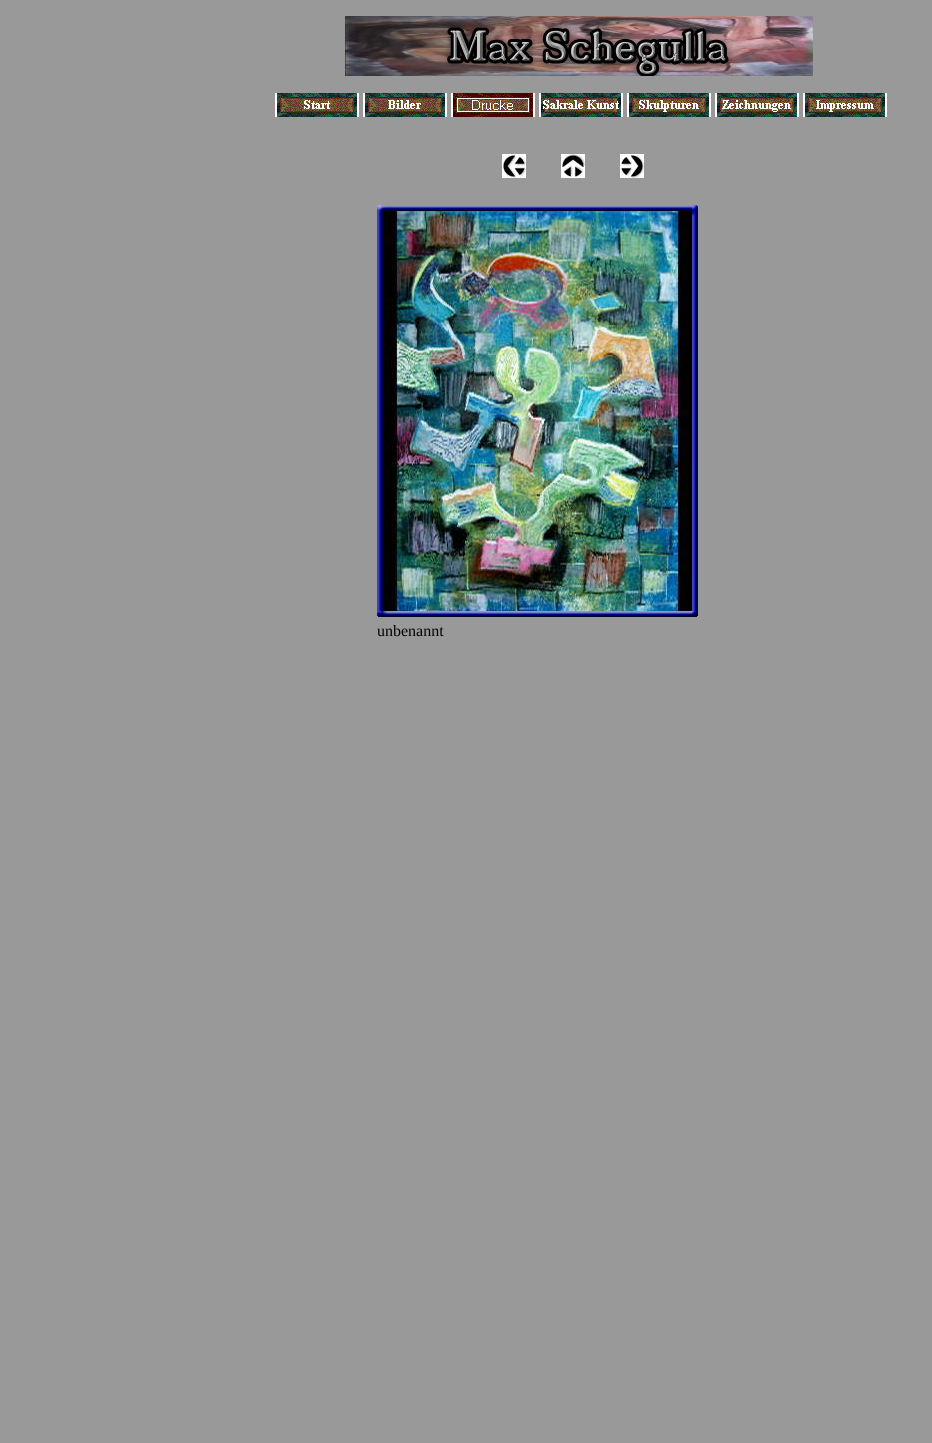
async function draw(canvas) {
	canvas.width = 932;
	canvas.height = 1443;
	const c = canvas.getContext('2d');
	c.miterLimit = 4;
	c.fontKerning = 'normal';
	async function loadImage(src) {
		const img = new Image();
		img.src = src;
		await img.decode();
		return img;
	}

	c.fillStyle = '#999';
	c.fillRect(0, 0, 932, 1443);
	c.drawImage(await loadImage('img1.png'), 345, 16, 468, 60);
	c.drawImage(await loadImage('img2.png'), 275, 93, 84, 24);
	c.drawImage(await loadImage('img3.png'), 363, 93, 84, 24);
	c.drawImage(await loadImage('img4.png'), 451, 93, 84, 24);
	c.drawImage(await loadImage('img5.png'), 539, 93, 84, 24);
	c.drawImage(await loadImage('img6.png'), 627, 93, 84, 24);
	c.drawImage(await loadImage('img7.png'), 715, 93, 84, 24);
	c.drawImage(await loadImage('img8.png'), 803, 93, 84, 24);
	c.drawImage(await loadImage('img9.png'), 502, 154, 24, 24);
	c.drawImage(await loadImage('img10.png'), 561, 154, 24, 24);
	c.drawImage(await loadImage('img11.png'), 620, 154, 24, 24);
	c.drawImage(await loadImage('img12.png'), 377, 205, 6, 6);
	c.drawImage(await loadImage('img13.png'), 383, 205, 309, 6);
	c.drawImage(await loadImage('img14.png'), 692, 205, 6, 6);
	c.drawImage(await loadImage('img15.png'), 377, 211, 6, 400);
	c.drawImage(await loadImage('img16.png'), 383, 211, 309, 400);
	c.drawImage(await loadImage('img17.png'), 692, 211, 6, 400);
	c.drawImage(await loadImage('img18.png'), 377, 611, 6, 6);
	c.drawImage(await loadImage('img19.png'), 383, 611, 309, 6);
	c.drawImage(await loadImage('img20.png'), 692, 611, 6, 6);
	c.font = '16px Liberation Serif';
	c.fillStyle = '#000';
	c.fillText('unbenannt', 377, 636);
}

draw(document.querySelector('canvas'));
